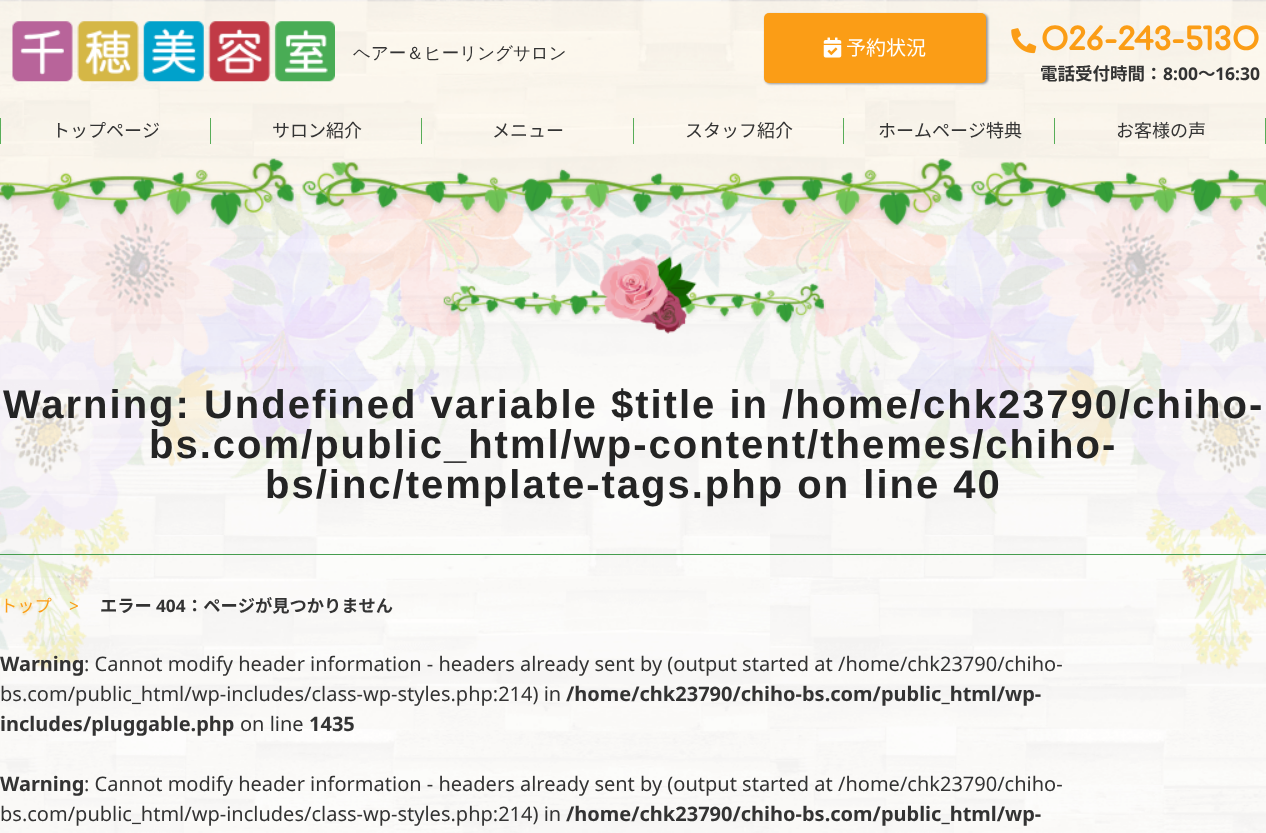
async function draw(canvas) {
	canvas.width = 1266;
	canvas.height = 833;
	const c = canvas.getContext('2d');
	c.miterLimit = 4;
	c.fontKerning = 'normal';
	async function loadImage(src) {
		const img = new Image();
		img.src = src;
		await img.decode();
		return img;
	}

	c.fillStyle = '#fff';
	c.fillRect(0, 0, 1266, 833);
	c.drawImage(await loadImage('img1.png'), 0, 0, 1266, 194);
	c.drawImage(await loadImage('img2.png'), 12, 21, 323, 61);
	c.font = '500 17.5px WenQuanYi Zen Hei';
	c.fillStyle = '#333';
	c.fillText('ヘアー＆ヒーリングサロン', 353, 59);
	c.fillStyle = '#999';
	c.filter = 'blur(1px)';
	c.beginPath();
	c.roundRect(765, 14, 223, 70, 5);
	c.fill();
	c.filter = 'none';
	c.fillStyle = '#fb9d16';
	c.beginPath();
	c.roundRect(764, 13, 222, 70, 5);
	c.fill();
	c.drawImage(await loadImage('img3.png'), 823, 37, 19, 21);
	c.font = '20px Noto Sans CJK JP';
	c.fillStyle = '#fff';
	c.fillText('予約状況', 846, 55);
	c.drawImage(await loadImage('img4.png'), 1011, 28, 26, 26);
	c.font = 'bold 35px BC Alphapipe';
	c.fillStyle = '#fb9d16';
	c.fillText('026-243-5130', 1041, 50);
	c.font = 'bold 17.5px Noto Sans CJK JP';
	c.fillStyle = '#333';
	c.fillText('電話受付時間：', 1040, 80);
	c.font = 'bold 17.5px Noto Sans';
	c.fillText('8:00', 1163, 80);
	c.font = 'bold 17.5px Noto Sans CJK JP';
	c.fillText('〜', 1198, 80);
	c.font = 'bold 17.5px Noto Sans';
	c.fillText('16:30', 1215, 80);
	c.fillStyle = '#58ad58';
	c.fillRect(0, 118, 1, 26);
	c.fillRect(210, 118, 1, 26);
	c.font = '18px Noto Sans CJK JP';
	c.fillStyle = '#333';
	c.fillText('トップページ', 52, 137);
	c.fillStyle = '#58ad58';
	c.fillRect(421, 118, 1, 26);
	c.fillStyle = '#333';
	c.fillText('サロン紹介', 272, 137);
	c.fillStyle = '#58ad58';
	c.fillRect(633, 118, 1, 26);
	c.fillStyle = '#333';
	c.fillText('メニュー', 492, 137);
	c.fillStyle = '#58ad58';
	c.fillRect(843, 118, 1, 26);
	c.fillStyle = '#333';
	c.fillText('スタッフ紹介', 685, 137);
	c.fillStyle = '#58ad58';
	c.fillRect(1054, 118, 1, 26);
	c.fillStyle = '#333';
	c.fillText('ホームページ特典', 878, 137);
	c.fillStyle = '#58ad58';
	c.fillRect(1265, 118, 1, 26);
	c.fillStyle = '#333';
	c.fillText('お客様の声', 1116, 137);
	c.drawImage(await loadImage('img6.png'), 0, 193, 1266, 640);
	c.drawImage(await loadImage('img5.png'), 0, 158, 1266, 71);
	c.drawImage(await loadImage('img7.png'), 443, 256, 383, 78);
	c.fillStyle = '#469d4f';
	c.fillRect(0, 554, 1266, 1);
	c.letterSpacing = '2px';
	c.font = 'bold 40px Liberation Sans';
	c.fillStyle = '#242424';
	for (const [text, x, y] of [
		['Warning: Undefined variable $title in /home/chk23790/chiho-', 3, 418],
		['bs.com/public_html/wp-content/themes/chiho-', 149, 458],
		['bs/inc/template-tags.php on line 40', 265, 498],
	]) {
		c.fillText(text, x, y);
	}
	c.letterSpacing = '0px';
	c.font = '17.25px Noto Sans CJK JP';
	c.fillStyle = '#fb9d16';
	c.fillText('トップ', 0, 612);
	c.font = '17.25px Noto Sans';
	c.fillText('>', 69, 612);
	c.font = 'bold 17.25px Noto Sans CJK JP';
	c.fillStyle = '#333';
	c.fillText('エラー', 100, 612);
	c.font = 'bold 17.25px Noto Sans';
	c.fillText('404', 156, 612);
	c.font = 'bold 17.25px Noto Sans CJK JP';
	c.fillText('：ページが見つかりません', 186, 612);
	c.font = 'bold 20px Noto Sans';
	c.fillText('Warning', 0, 671);
	c.font = '20px Noto Sans';
	c.fillText(': Cannot modify header information - headers already sent by (output started at /home/chk23790/chiho-', 84, 671);
	c.fillText('bs.com/public_html/wp-includes/class-wp-styles.php:214) in', 0, 701);
	c.font = 'bold 20px Noto Sans';
	c.fillText('/home/chk23790/chiho-bs.com/public_html/wp-', 566, 701);
	c.fillText('includes/pluggable.php', 0, 731);
	c.font = '20px Noto Sans';
	c.fillText('on line', 240, 731);
	c.font = 'bold 20px Noto Sans';
	c.fillText('1435', 309, 731);
	c.fillText('Warning', 0, 791);
	c.font = '20px Noto Sans';
	c.fillText(': Cannot modify header information - headers already sent by (output started at /home/chk23790/chiho-', 84, 791);
	c.fillText('bs.com/public_html/wp-includes/class-wp-styles.php:214) in', 0, 821);
	c.font = 'bold 20px Noto Sans';
	c.fillText('/home/chk23790/chiho-bs.com/public_html/wp-', 566, 821);
}

draw(document.querySelector('canvas'));
